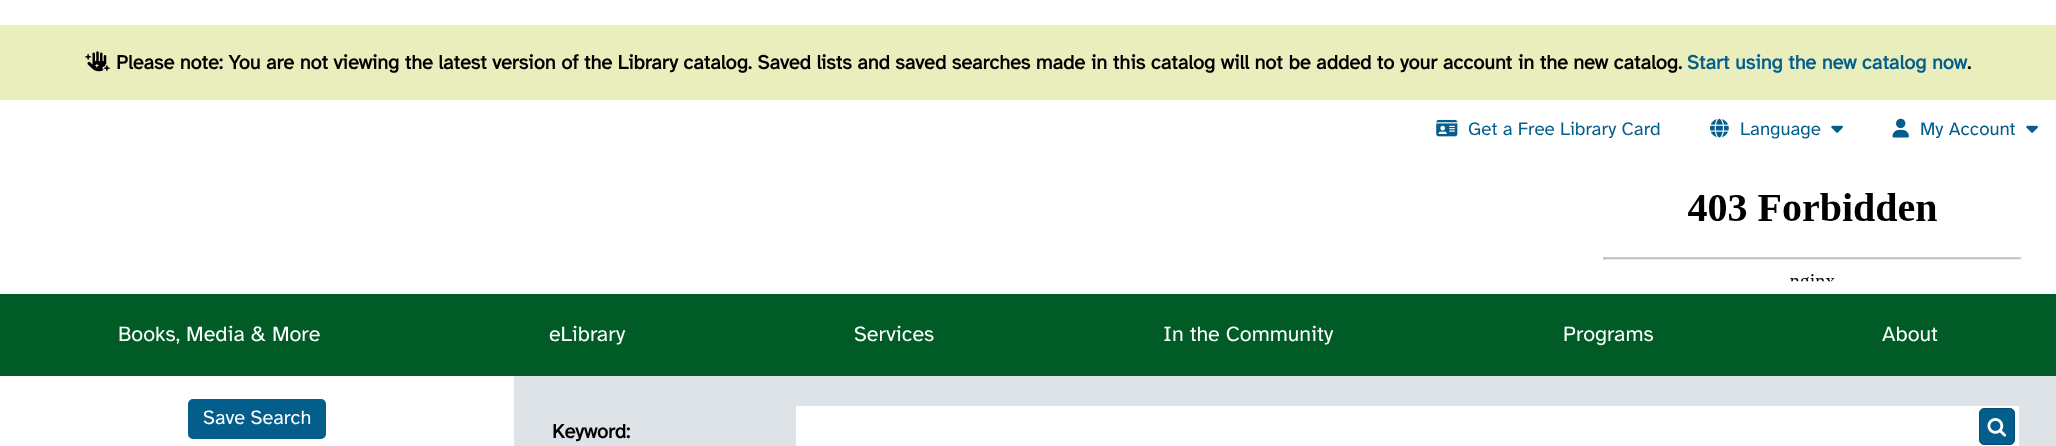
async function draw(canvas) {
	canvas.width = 2056;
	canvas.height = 446;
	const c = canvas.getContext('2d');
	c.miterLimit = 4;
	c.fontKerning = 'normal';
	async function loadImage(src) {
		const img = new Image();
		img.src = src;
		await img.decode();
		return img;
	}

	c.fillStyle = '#fff';
	c.fillRect(0, 0, 2056, 446);
	c.fillStyle = '#e9eebc';
	c.fillRect(0, 25, 2056, 75);
	c.drawImage(await loadImage('img1.png'), 85, 51, 25, 21);
	c.font = 'bold 20px Atkinson Hyperlegible';
	c.fillStyle = '#000';
	c.fillText('Please note: You are not viewing the latest version of the Library catalog. Saved lists and saved searches made in this catalog will not be added to your account in the new catalog.', 116, 69);
	c.fillStyle = '#045e8b';
	c.fillText('Start using the new catalog now', 1687, 69);
	c.fillStyle = '#000';
	c.fillText('.', 1967, 69);
	c.drawImage(await loadImage('img2.png'), 1436, 119, 22, 18);
	c.font = '18.75px Atkinson Hyperlegible';
	c.fillStyle = '#045e8b';
	c.fillText('Get a Free Library Card', 1468, 135);
	c.drawImage(await loadImage('img3.png'), 1710, 118, 19, 20);
	c.fillText('Language', 1740, 135);
	c.drawImage(await loadImage('img4.png'), 1831, 125, 12, 8);
	c.drawImage(await loadImage('img5.png'), 1892, 118, 17, 20);
	c.fillText('My Account', 1920, 135);
	c.drawImage(await loadImage('img4.png'), 2026, 125, 12, 8);
	c.drawImage(await loadImage('img6.png'), 1603, 193, 419, 89);
	c.fillStyle = '#005b27';
	c.fillRect(0, 294, 2056, 82);
	c.font = '21.5px Atkinson Hyperlegible';
	c.fillStyle = '#fff';
	for (const [text, x, y] of [
		['Books, Media & More', 118, 341],
		['eLibrary', 549, 341],
		['Services', 854, 341],
		['In the Community', 1163, 341],
		['Programs', 1563, 341],
		['About', 1882, 341],
	]) {
		c.fillText(text, x, y);
	}
	c.fillStyle = '#045e8b';
	c.beginPath();
	c.roundRect(188, 399, 138, 40, 5);
	c.fill();
	c.font = '20px Atkinson Hyperlegible';
	c.fillStyle = '#fff';
	c.fillText('Save Search', 203, 424);
	c.fillStyle = '#dee3e8';
	c.fillRect(514, 376, 1542, 70);
	c.font = 'bold 20px Atkinson Hyperlegible';
	c.fillStyle = '#000';
	c.fillText('Keyword:', 552, 438);
	c.fillStyle = '#fff';
	c.fillRect(796, 406, 1223, 40);
	c.fillStyle = '#045e8b';
	c.beginPath();
	c.roundRect(1979.5, 408.5, 35, 36, 4.5);
	c.fill();
	c.strokeStyle = '#034d72';
	c.stroke();
	c.drawImage(await loadImage('img7.png'), 1987, 418, 20, 19);
}

draw(document.querySelector('canvas'));
